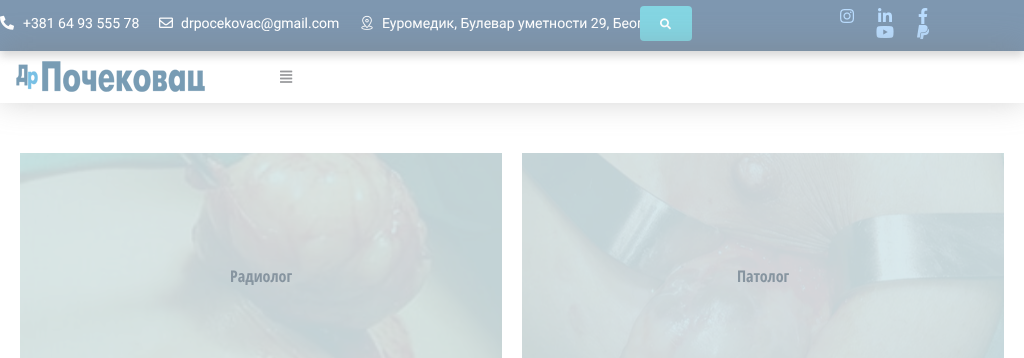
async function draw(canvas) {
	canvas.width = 1024;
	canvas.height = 358;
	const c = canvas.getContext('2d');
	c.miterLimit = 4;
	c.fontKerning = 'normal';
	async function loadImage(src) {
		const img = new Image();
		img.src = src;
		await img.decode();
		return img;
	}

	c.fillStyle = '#fff';
	c.fillRect(0, 0, 1024, 358);
	c.fillStyle = '#d7d7d7';
	c.filter = 'blur(5px)';
	c.beginPath();
	c.rect(0, -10, 1024, 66);
	c.fill();
	c.filter = 'none';
	c.fillStyle = '#7e97b0';
	c.fillRect(0, 0, 1024, 51);
	c.drawImage(await loadImage('img3.png'), 0, 15, 14, 15);
	c.drawImage(await loadImage('img4.png'), 159, 17, 14, 11);
	c.drawImage(await loadImage('img5.png'), 361, 15, 12, 15);
	c.font = '14px Roboto';
	c.fillStyle = '#fff';
	c.fillText('Еуромедик, Булевар уметности 29, Беог', 382, 28);
	c.fillStyle = '#84d5e2';
	c.beginPath();
	c.roundRect(640, 6, 52, 35, 4);
	c.fill();
	c.drawImage(await loadImage('img6.png'), 660, 18, 11, 12);
	c.drawImage(await loadImage('img7.png'), 840, 9, 15, 14);
	c.drawImage(await loadImage('img8.png'), 878, 8, 14, 14);
	c.drawImage(await loadImage('img9.png'), 918, 8, 10, 16);
	c.drawImage(await loadImage('img10.png'), 876, 26, 18, 12);
	c.drawImage(await loadImage('img11.png'), 917, 24, 12, 16);
	c.save();
	c.beginPath();
	c.moveTo(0, 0);
	c.lineTo(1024, 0);
	c.lineTo(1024, 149);
	c.lineTo(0, 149);
	c.closePath();
	c.moveTo(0, 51);
	c.lineTo(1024, 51);
	c.lineTo(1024, 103);
	c.lineTo(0, 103);
	c.closePath();
	c.clip('evenodd');
	c.fillStyle = '#78787861';
	c.filter = 'blur(16px)';
	c.beginPath();
	c.rect(0, 48, 1024, 52);
	c.fill();
	c.filter = 'none';
	c.restore();
	c.drawImage(await loadImage('img1.png'), 16, 61, 189, 31);
	c.drawImage(await loadImage('img2.png'), 280, 70, 13, 13);
	c.fillStyle = '#fff';
	c.fillText('+381 64 93 555 78', 23, 28);
	c.fillText('drpocekovac@gmail.com', 181, 28);
	c.drawImage(await loadImage('img12.png'), 20, 153, 482, 205);
	c.font = 'bold 16px Open Sans Condensed';
	c.fillStyle = '#8795a0';
	c.fillText('Радиолог', 230, 282);
	c.drawImage(await loadImage('img13.png'), 522, 153, 482, 205);
	c.fillText('Патолог', 737, 282);
}

draw(document.querySelector('canvas'));
